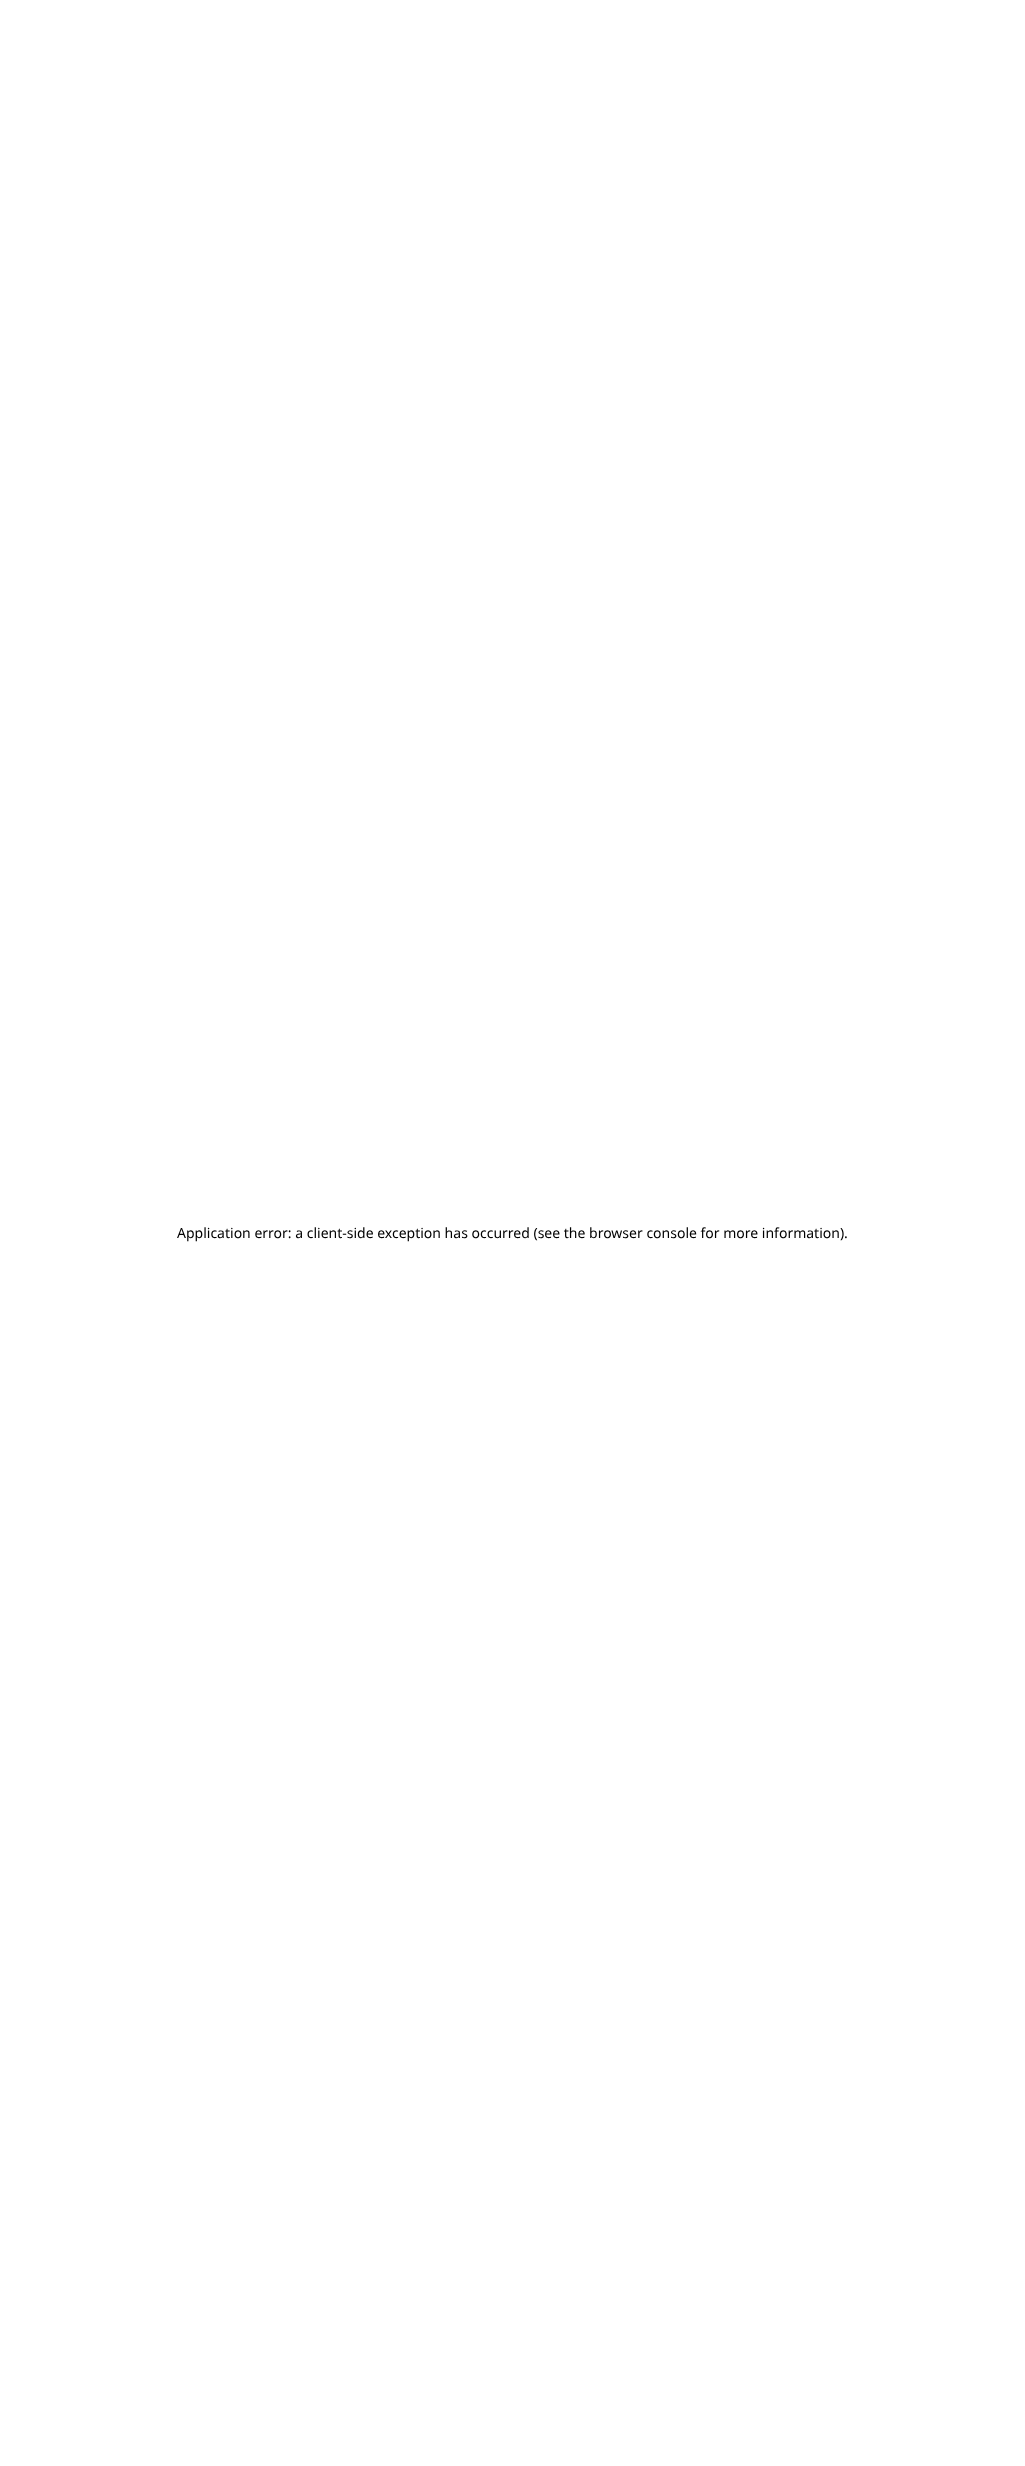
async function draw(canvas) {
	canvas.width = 1025;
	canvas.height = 2466;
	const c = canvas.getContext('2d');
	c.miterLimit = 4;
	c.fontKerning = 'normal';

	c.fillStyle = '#fff';
	c.fillRect(0, 0, 1025, 2466);
	c.font = '14px Noto Sans';
	c.fillStyle = '#000';
	c.fillText('Application error: a client-side exception has occurred (see the browser console for more information).', 177, 1238);
}

draw(document.querySelector('canvas'));
